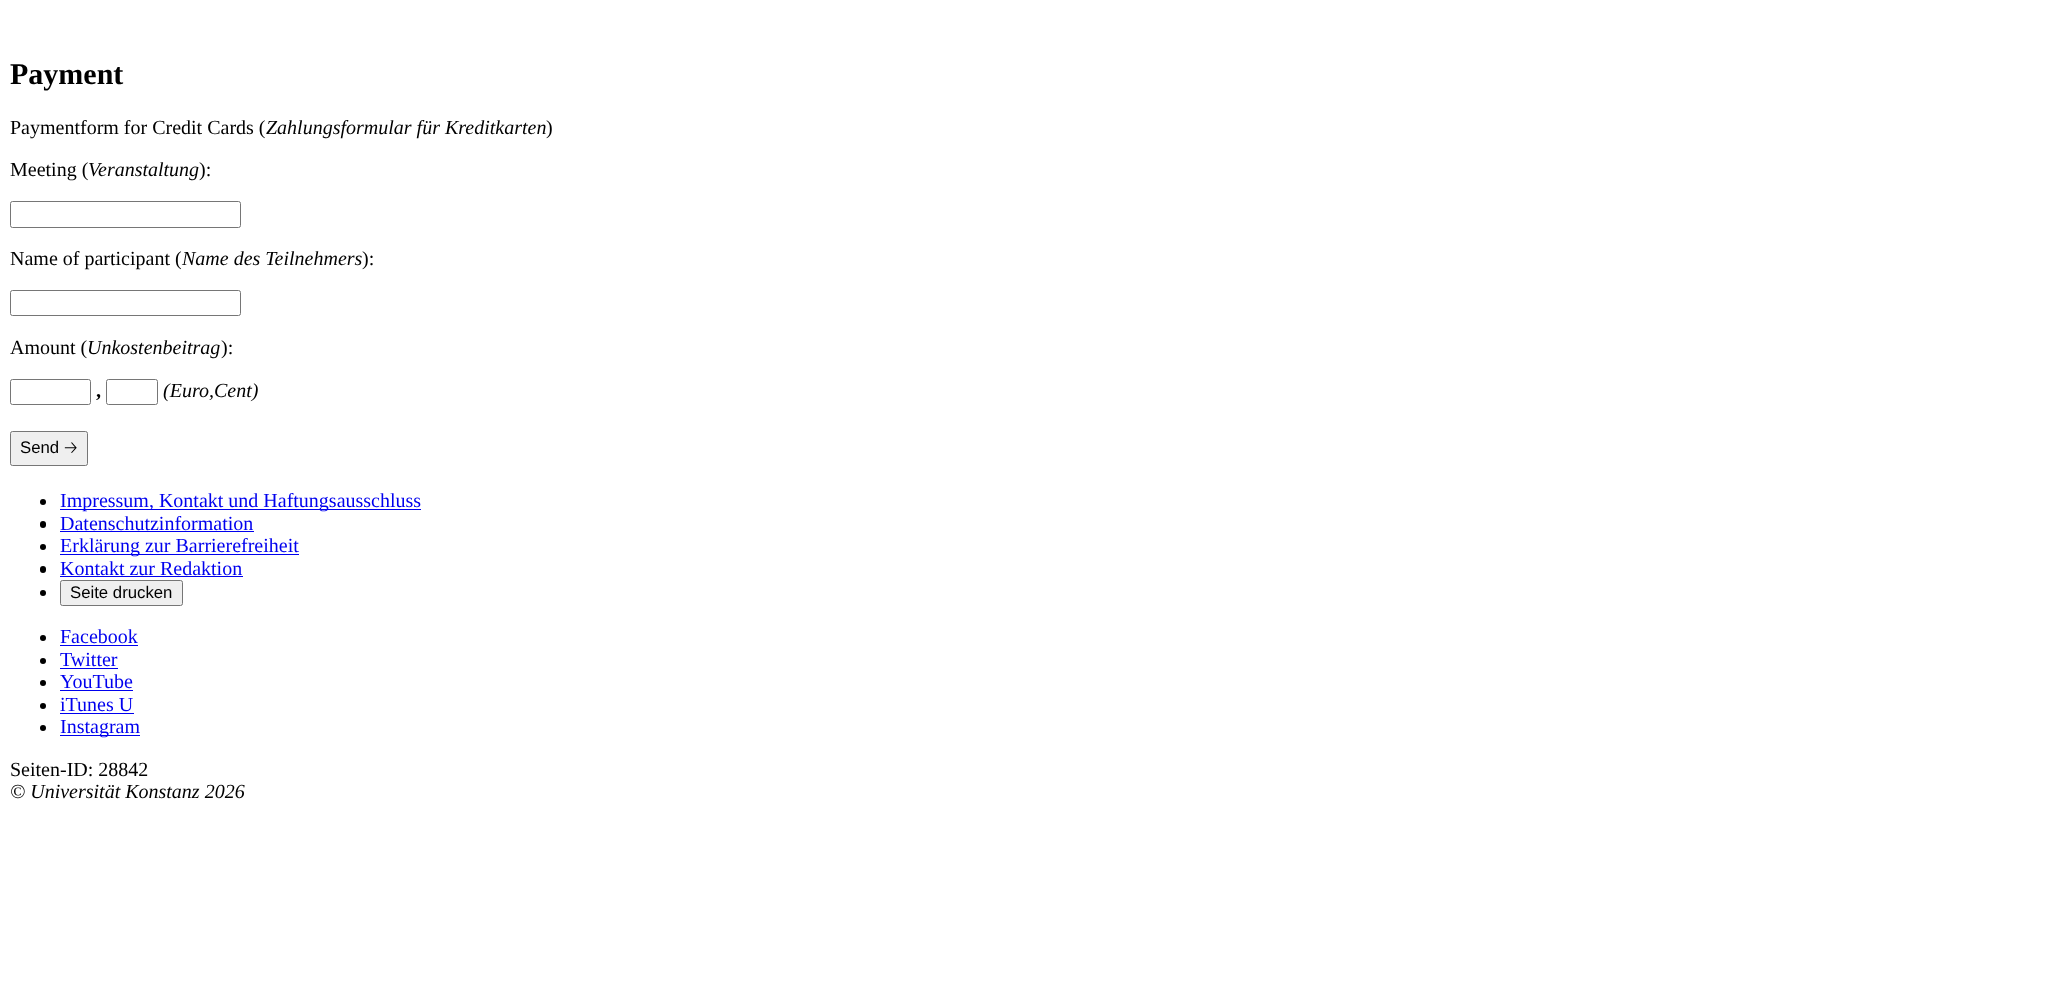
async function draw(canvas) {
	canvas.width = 2062;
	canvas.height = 1004;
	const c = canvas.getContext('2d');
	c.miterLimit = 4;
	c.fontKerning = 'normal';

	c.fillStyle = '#fff';
	c.fillRect(0, 0, 2062, 1004);
	c.font = 'bold 30px Liberation Serif';
	c.fillStyle = '#000';
	c.fillText('Payment', 10, 84);
	c.font = '20px Liberation Serif';
	c.fillText('Paymentform for Credit Cards (', 10, 134);
	c.font = 'italic 20px Liberation Serif';
	c.fillText('Zahlungsformular für Kreditkarten', 266, 134);
	c.font = '20px Liberation Serif';
	c.fillText(')', 546, 134);
	c.fillText('Meeting (', 10, 176);
	c.font = 'italic 20px Liberation Serif';
	c.fillText('Veranstaltung', 88, 176);
	c.font = '20px Liberation Serif';
	c.fillText('):', 199, 176);
	c.beginPath();
	c.roundRect(10.5, 201.5, 230, 26, 2);
	c.strokeStyle = '#767676';
	c.stroke();
	c.fillText('Name of participant (', 10, 265);
	c.font = 'italic 20px Liberation Serif';
	c.fillText('Name des Teilnehmers', 182, 265);
	c.font = '20px Liberation Serif';
	c.fillText('):', 362, 265);
	c.beginPath();
	c.roundRect(10.5, 290.5, 230, 25, 2);
	c.stroke();
	c.fillText('Amount (', 10, 354);
	c.font = 'italic 20px Liberation Serif';
	c.fillText('Unkostenbeitrag', 87, 354);
	c.font = '20px Liberation Serif';
	c.fillText('):', 221, 354);
	c.beginPath();
	c.roundRect(10.5, 379.5, 80, 25, 2);
	c.stroke();
	c.font = 'bold 20px Liberation Serif';
	c.fillText(',', 96, 397);
	c.beginPath();
	c.roundRect(106.5, 379.5, 51, 25, 2);
	c.stroke();
	c.font = 'italic 20px Liberation Serif';
	c.fillText('(Euro,Cent)', 163, 397);
	c.fillStyle = '#efefef';
	c.beginPath();
	c.roundRect(10.5, 431.5, 77, 34, 2);
	c.fill();
	c.stroke();
	c.font = '16.75px Liberation Sans';
	c.fillStyle = '#000';
	c.fillText('Send', 20, 453);
	c.font = '16.75px "Noto Sans Symbols 2"';
	c.fillText('🡢', 64, 453);
	c.beginPath();
	c.arc(43, 502, 3, 0, 2 * Math.PI);
	c.fill();
	c.fillStyle = '#00e';
	c.fillRect(60, 509, 361, 1);
	c.font = '20px Liberation Serif';
	c.fillText('Impressum, Kontakt und Haftungsausschluss', 60, 507);
	c.fillStyle = '#000';
	c.beginPath();
	c.roundRect(40, 521, 6, 7, 3);
	c.fill();
	c.fillStyle = '#00e';
	c.fillText('Datenschutzinformation', 60, 530);
	c.fillRect(60, 531, 194, 1);
	c.fillStyle = '#000';
	c.beginPath();
	c.arc(43, 547, 3, 0, 2 * Math.PI);
	c.fill();
	c.fillStyle = '#00e';
	c.fillRect(60, 554, 239, 1);
	c.fillText('Erklärung zur Barrierefreiheit', 60, 552);
	c.fillStyle = '#000';
	c.beginPath();
	c.roundRect(40, 566, 6, 7, 3);
	c.fill();
	c.fillStyle = '#00e';
	c.fillText('Kontakt zur Redaktion', 60, 575);
	c.fillRect(60, 576, 183, 1);
	c.fillStyle = '#000';
	c.beginPath();
	c.arc(43, 593, 3, 0, 2 * Math.PI);
	c.fill();
	c.fillStyle = '#efefef';
	c.beginPath();
	c.roundRect(60.5, 580.5, 122, 25, 2);
	c.fill();
	c.stroke();
	c.font = '16.75px Liberation Sans';
	c.fillStyle = '#000';
	c.fillText('Seite drucken', 70, 598);
	c.beginPath();
	c.arc(43, 638, 3, 0, 2 * Math.PI);
	c.fill();
	c.font = '20px Liberation Serif';
	c.fillStyle = '#00e';
	c.fillText('Facebook', 60, 643);
	c.fillRect(60, 645, 78, 1);
	c.fillStyle = '#000';
	c.beginPath();
	c.arc(43, 661, 3, 0, 2 * Math.PI);
	c.fill();
	c.fillStyle = '#00e';
	c.fillText('Twitter', 60, 666);
	c.fillRect(60, 668, 58, 1);
	c.fillStyle = '#000';
	c.beginPath();
	c.arc(43, 683, 3, 0, 2 * Math.PI);
	c.fill();
	c.fillStyle = '#00e';
	c.fillText('YouTube', 60, 688);
	c.fillRect(60, 690, 73, 1);
	c.fillStyle = '#000';
	c.beginPath();
	c.arc(43, 706, 3, 0, 2 * Math.PI);
	c.fill();
	c.fillStyle = '#00e';
	c.fillText('iTunes U', 60, 711);
	c.fillRect(60, 713, 74, 1);
	c.fillStyle = '#000';
	c.beginPath();
	c.arc(43, 728, 3, 0, 2 * Math.PI);
	c.fill();
	c.fillStyle = '#00e';
	c.fillRect(60, 735, 80, 1);
	c.fillText('Instagram', 60, 733);
	c.fillStyle = '#000';
	c.fillText('Seiten-ID: 28842', 10, 776);
	c.font = 'italic 20px Liberation Serif';
	c.fillText('© Universität Konstanz 2026', 10, 798);
}

draw(document.querySelector('canvas'));
